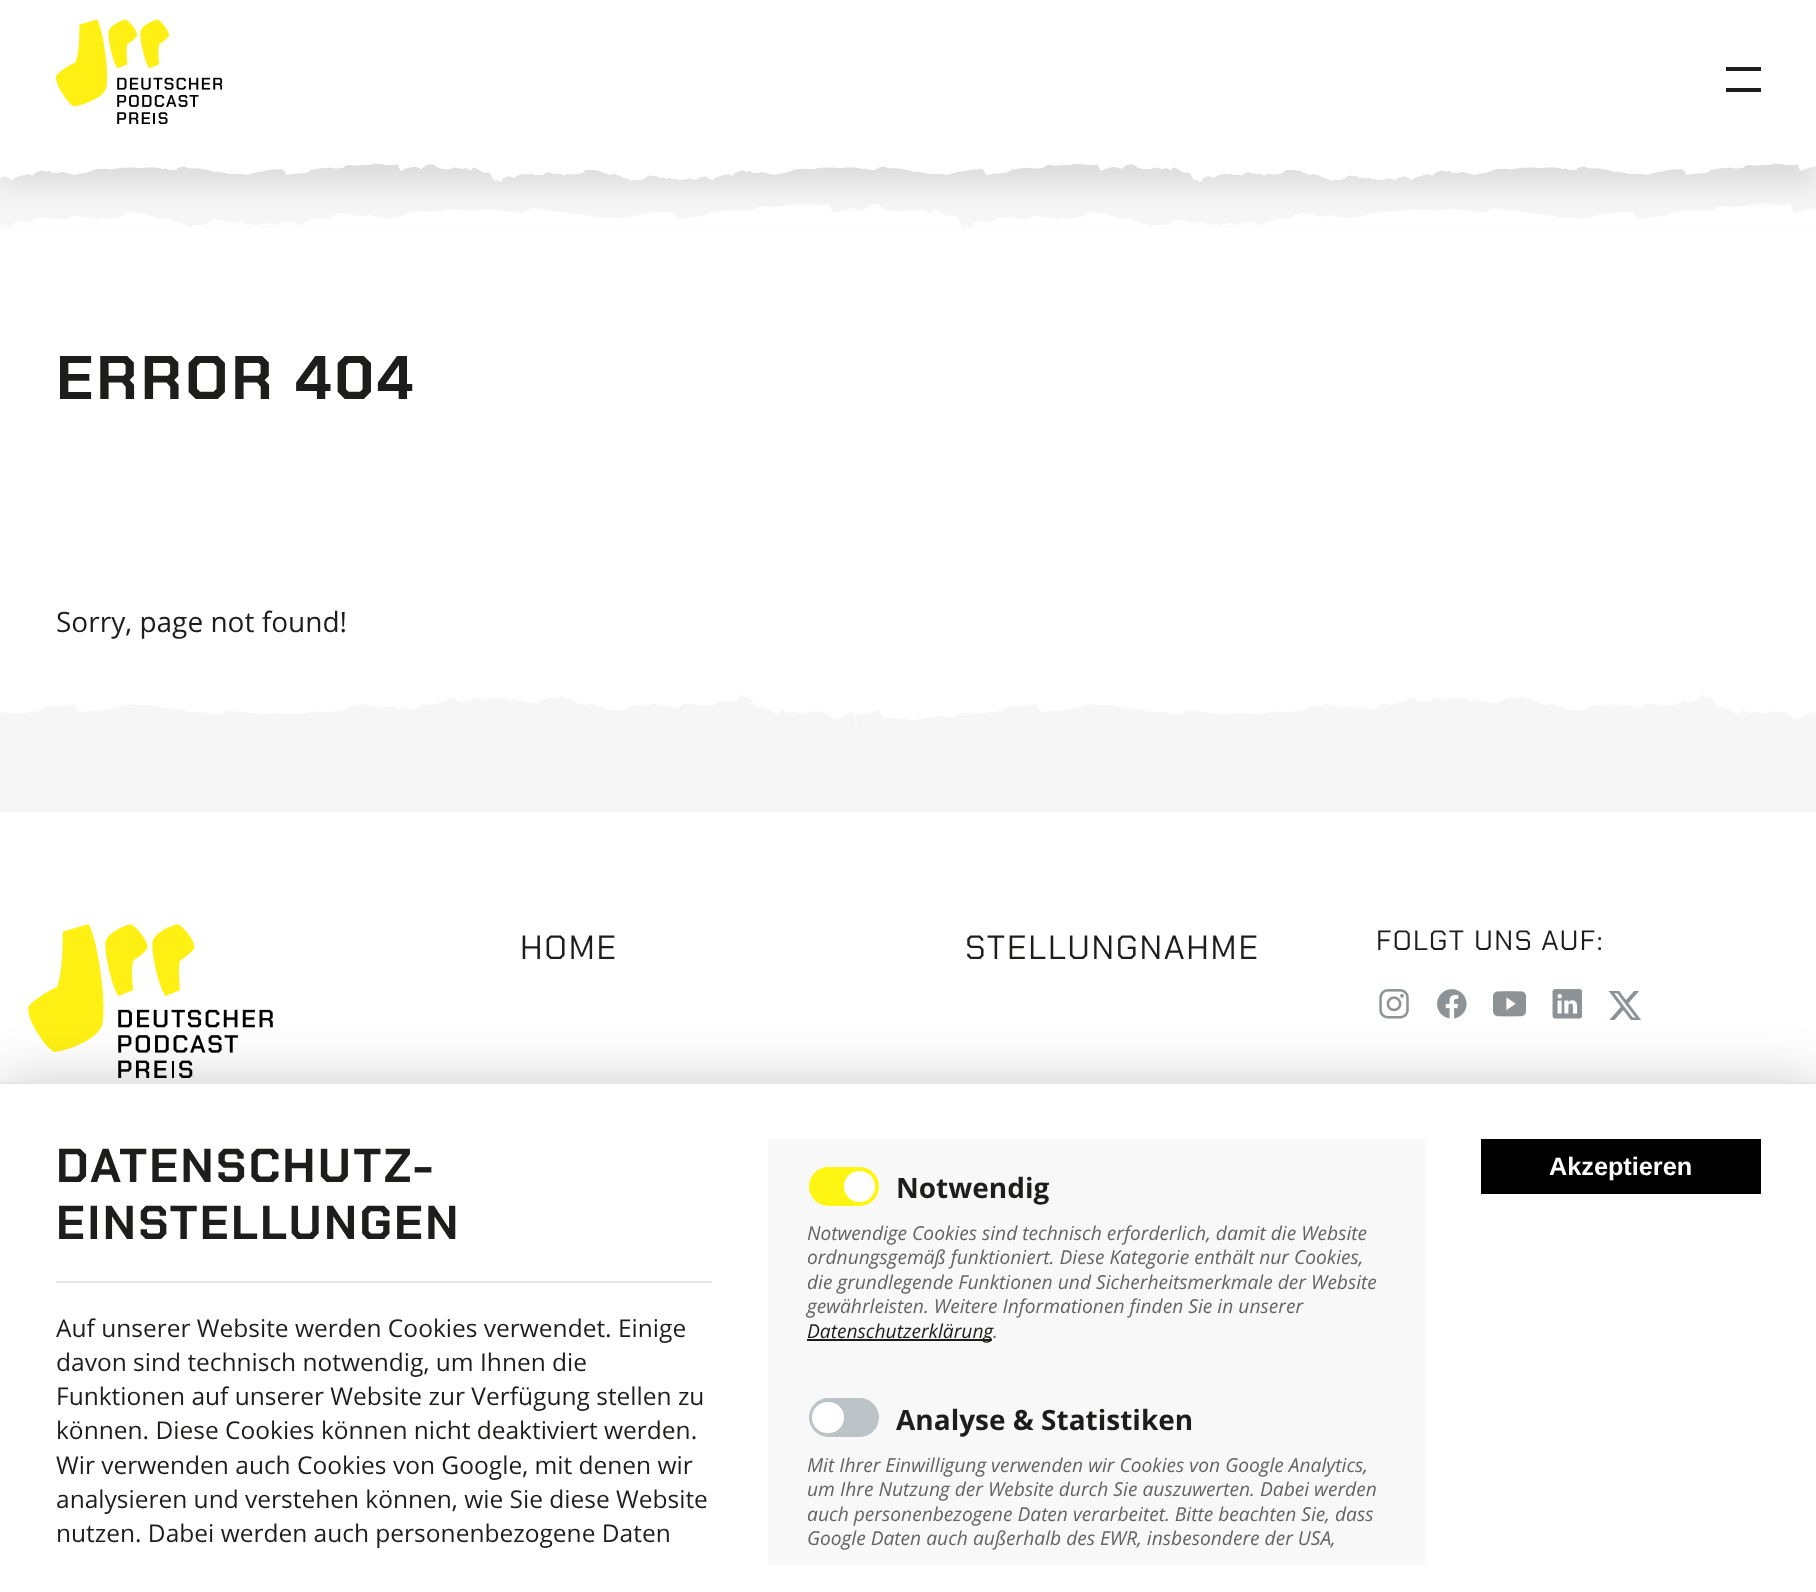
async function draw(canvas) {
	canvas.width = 1816;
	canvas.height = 1592;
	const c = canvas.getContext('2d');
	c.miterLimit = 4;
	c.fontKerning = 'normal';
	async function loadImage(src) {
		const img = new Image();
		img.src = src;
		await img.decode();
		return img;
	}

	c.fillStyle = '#f6f6f6';
	c.fillRect(0, 0, 1816, 1592);
	c.fillStyle = '#fff';
	c.fillRect(0, 196, 1816, 532);
	c.drawImage(await loadImage('img3.png'), 0, 196, 1816, 32);
	c.fillStyle = '#0000001a';
	c.filter = 'blur(14px)';
	c.beginPath();
	c.rect(0, 28, 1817, 158);
	c.fill();
	c.filter = 'none';
	c.fillStyle = '#fff';
	c.fillRect(0, 0, 1816, 158);
	c.drawImage(await loadImage('img1.png'), 56, 19, 166, 105);
	c.fillStyle = '#1d1d1b';
	c.fillRect(1726, 67, 35, 4);
	c.fillRect(1726, 88, 35, 4);
	c.drawImage(await loadImage('img2.png'), 0, 158, 1816, 24);
	c.letterSpacing = '3px';
	c.font = 'bold 61.5px Chakra Petch';
	c.fillText('ERROR 404', 56, 399);
	c.letterSpacing = '0px';
	c.font = '28px Open Sans';
	c.fillText('Sorry, page not found!', 56, 632);
	c.drawImage(await loadImage('img4.png'), 0, 695, 1816, 33);
	c.fillStyle = '#fff';
	c.fillRect(0, 812, 1816, 270);
	c.drawImage(await loadImage('img5.png'), 28, 924, 245, 154);
	c.letterSpacing = '1.75px';
	c.font = '33.5px Chakra Petch';
	c.fillStyle = '#1d1d1b';
	c.fillText('HOME', 520, 959);
	c.fillText('STELLUNGNAHME', 965, 959);
	c.letterSpacing = '1.4px';
	c.font = '28px Chakra Petch';
	c.fillText('FOLGT UNS AUF:', 1376, 950);
	c.drawImage(await loadImage('img6.png'), 1379, 989, 30, 30);
	c.drawImage(await loadImage('img7.png'), 1437, 989, 30, 30);
	c.drawImage(await loadImage('img8.png'), 1493, 991, 33, 26);
	c.drawImage(await loadImage('img9.png'), 1552, 989, 30, 30);
	c.drawImage(await loadImage('img10.png'), 1608, 991, 33, 29);
	c.fillStyle = '#00000033';
	c.filter = 'blur(28px)';
	c.beginPath();
	c.rect(0, 1082, 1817, 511);
	c.fill();
	c.filter = 'none';
	for (const [x, y, w, h, color] of [
		[0, 1084, 1816, 508, '#fff'],
		[14, 1082, 1789, 2, '#e7e7e7'],
		[56, 1281, 656, 2, '#e7e7e7'],
	]) {
		c.fillStyle = color;
		c.fillRect(x, y, w, h);
	}
	c.letterSpacing = '2.4px';
	c.font = 'bold 47.5px Chakra Petch';
	c.fillStyle = '#1d1d1b';
	c.fillText('DATENSCHUTZ-', 56, 1182);
	c.fillText('EINSTELLUNGEN', 56, 1239);
	c.letterSpacing = '0px';
	c.font = '24.5px Open Sans';
	for (const [text, x, y] of [
		['Auf unserer Website werden Cookies verwendet. Einige', 56, 1337],
		['davon sind technisch notwendig, um Ihnen die', 56, 1371],
		['Funktionen auf unserer Website zur Verfügung stellen zu', 56, 1405],
		['können. Diese Cookies können nicht deaktiviert werden.', 56, 1439],
		['Wir verwenden auch Cookies von Google, mit denen wir', 56, 1474],
		['analysieren und verstehen können, wie Sie diese Website', 56, 1508],
		['nutzen. Dabei werden auch personenbezogene Daten', 56, 1542],
	]) {
		c.fillText(text, x, y);
	}
	c.fillStyle = '#000';
	c.fillRect(1481, 1139, 280, 55);
	c.font = 'bold 25.25px Liberation Sans';
	c.fillStyle = '#fff';
	c.fillText('Akzeptieren', 1549, 1175);
	c.fillStyle = '#f8f8f8';
	c.fillRect(768, 1139, 657, 426);
	c.fillStyle = '#fff513';
	c.beginPath();
	c.roundRect(809, 1167, 70, 39, 19.5);
	c.fill();
	c.fillStyle = '#fff';
	c.beginPath();
	c.arc(859.5, 1186.5, 15.5, 0, 2 * Math.PI);
	c.fill();
	c.font = 'bold 28px Open Sans';
	c.fillStyle = '#1d1d1b';
	c.fillText('Notwendig', 896, 1198);
	c.font = 'italic 19.25px Open Sans';
	c.fillStyle = '#646464';
	for (const [text, x, y] of [
		['Notwendige Cookies sind technisch erforderlich, damit die Website', 807, 1240],
		['ordnungsgemäß funktioniert. Diese Kategorie enthält nur Cookies,', 807, 1264],
		['die grundlegende Funktionen und Sicherheitsmerkmale der Website', 807, 1289],
		['gewährleisten. Weitere Informationen finden Sie in unserer', 807, 1313],
	]) {
		c.fillText(text, x, y);
	}
	c.fillStyle = '#1d1d1b';
	c.fillRect(807, 1339, 185, 2);
	c.fillText('Datenschutzerklärung', 807, 1338);
	c.fillStyle = '#646464';
	c.fillText('.', 993, 1338);
	c.fillStyle = '#bbc3c7';
	c.beginPath();
	c.roundRect(809, 1398, 70, 39, 19.5);
	c.fill();
	c.fillStyle = '#fff';
	c.beginPath();
	c.roundRect(812, 1402, 32, 31, 15.5);
	c.fill();
	c.font = 'bold 28px Open Sans';
	c.fillStyle = '#1d1d1b';
	c.fillText('Analyse & Statistiken', 896, 1430);
	c.font = 'italic 19.25px Open Sans';
	c.fillStyle = '#646464';
	for (const [text, x, y] of [
		['Mit Ihrer Einwilligung verwenden wir Cookies von Google Analytics,', 807, 1472],
		['um Ihre Nutzung der Website durch Sie auszuwerten. Dabei werden', 807, 1496],
		['auch personenbezogene Daten verarbeitet. Bitte beachten Sie, dass', 807, 1521],
		['Google Daten auch außerhalb des EWR, insbesondere der USA,', 807, 1545],
	]) {
		c.fillText(text, x, y);
	}
}

draw(document.querySelector('canvas'));
